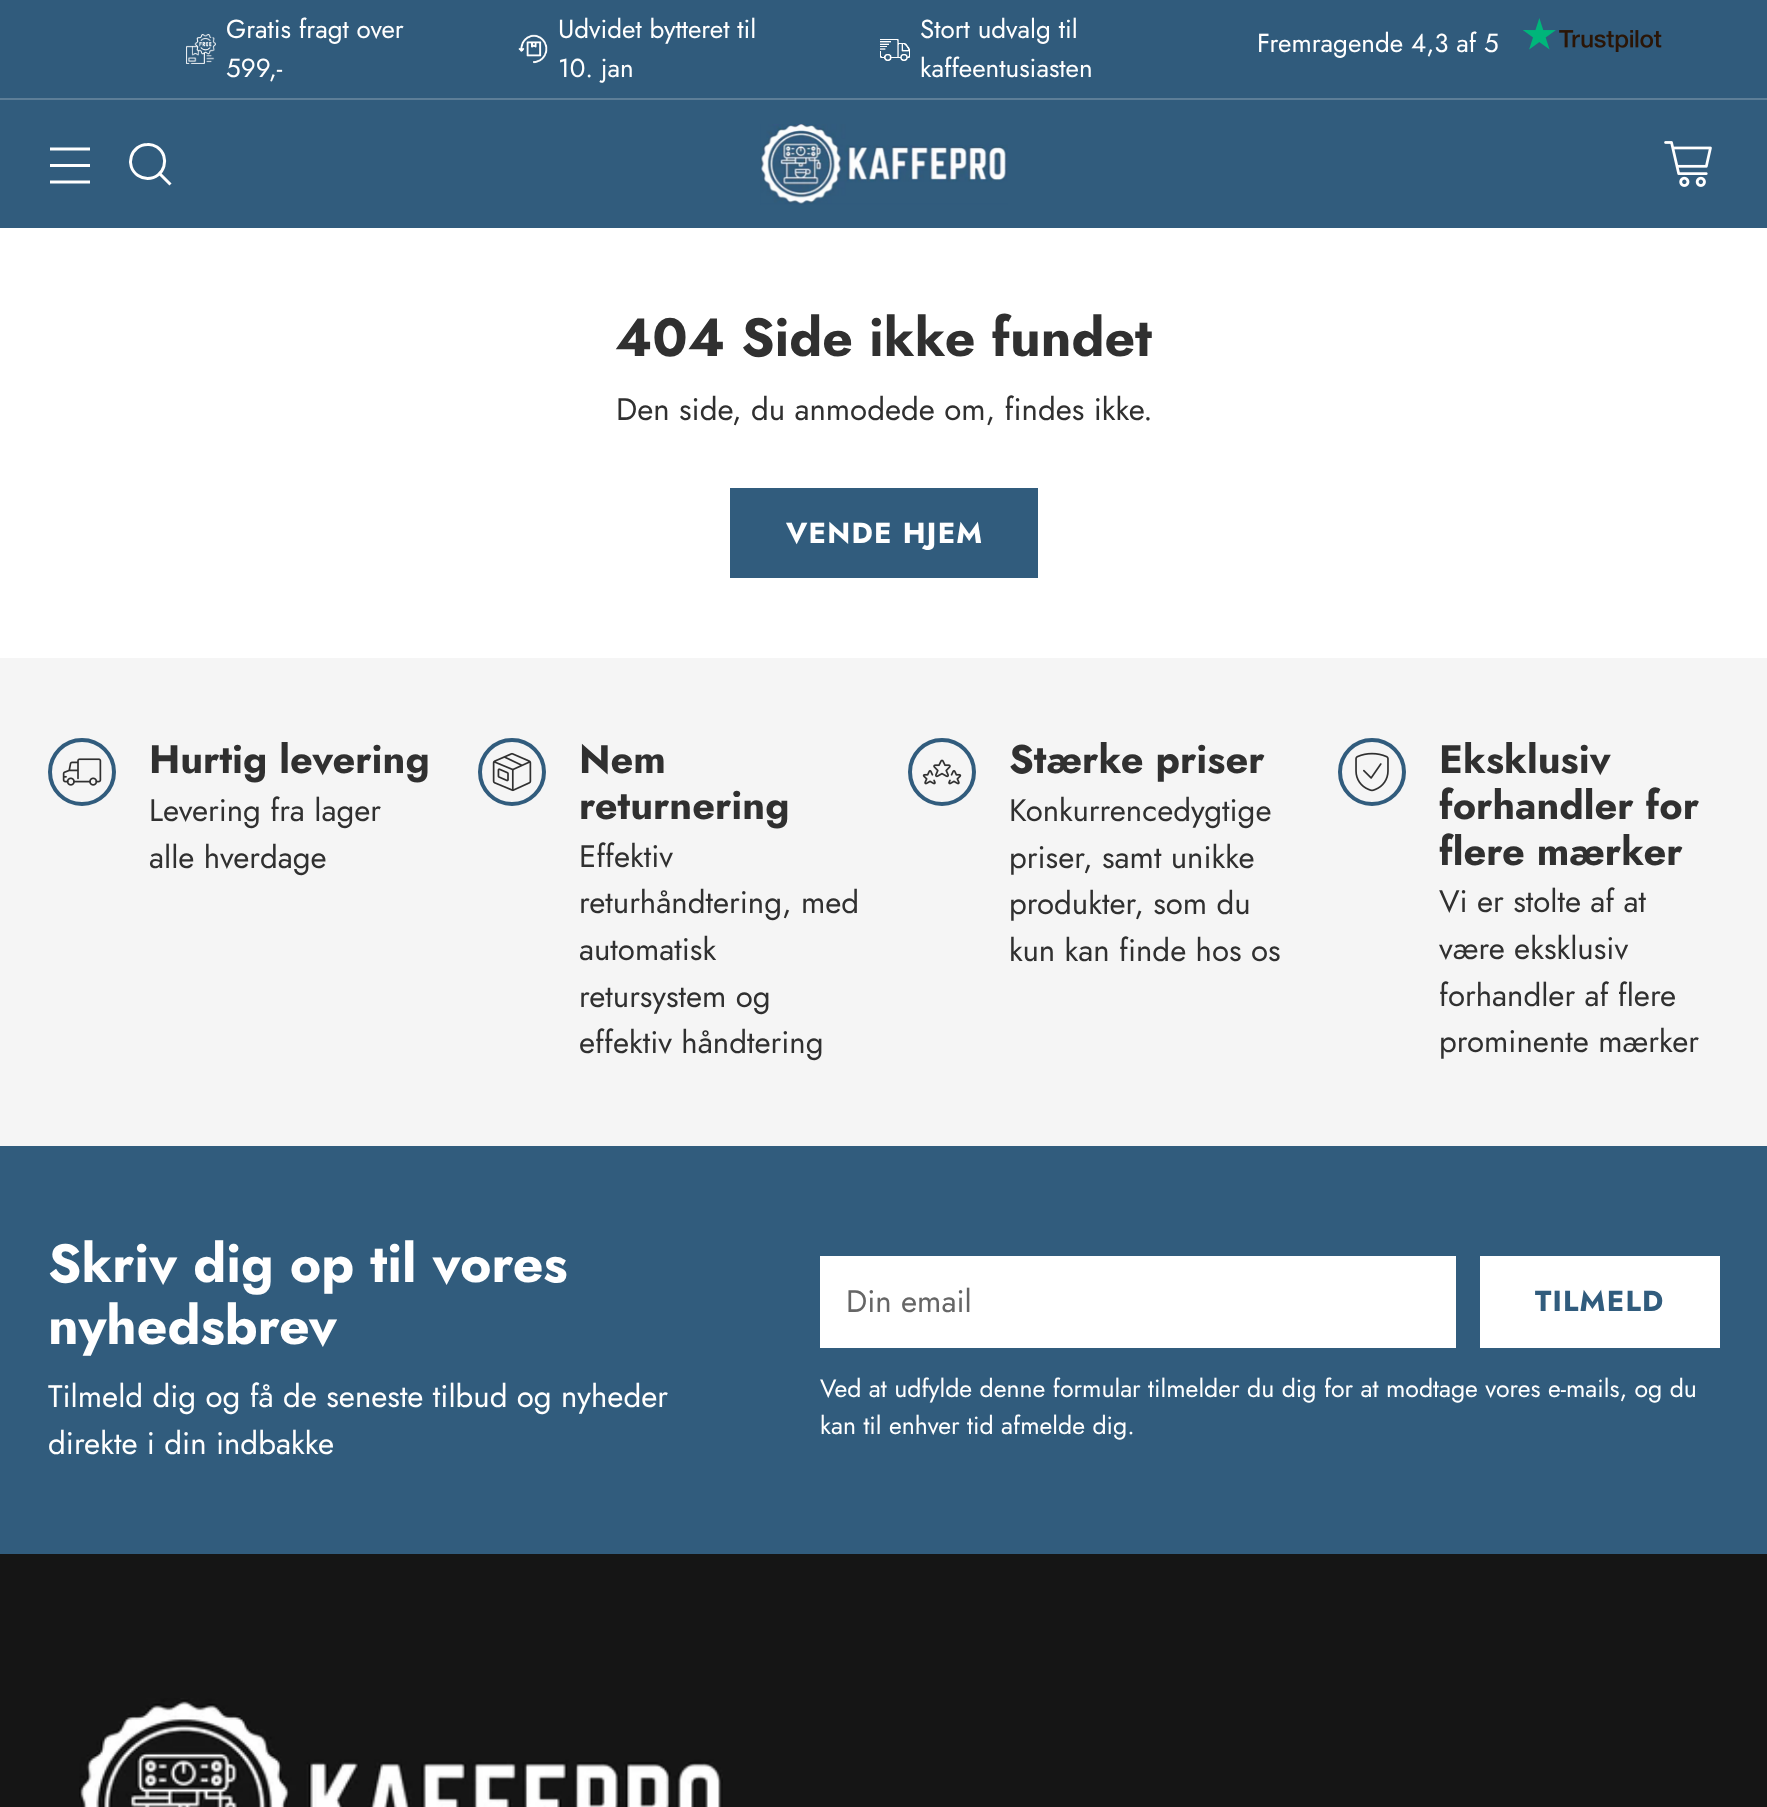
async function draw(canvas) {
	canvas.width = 1767;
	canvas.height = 1807;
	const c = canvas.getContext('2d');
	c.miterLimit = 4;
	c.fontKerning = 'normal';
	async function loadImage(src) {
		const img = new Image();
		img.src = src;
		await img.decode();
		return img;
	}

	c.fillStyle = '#fff';
	c.fillRect(0, 0, 1767, 1807);
	c.fillStyle = '#305b7c';
	c.fillRect(0, 0, 1767, 98);
	c.fillStyle = '#5d7e97';
	c.fillRect(0, 98, 1767, 2);
	c.drawImage(await loadImage('img1.png'), 186, 34, 30, 30);
	c.font = '26px Jost';
	c.fillStyle = '#fff';
	c.fillText('Gratis fragt over', 226, 38);
	c.fillText('599,-', 226, 77);
	c.drawImage(await loadImage('img2.png'), 518, 34, 30, 30);
	c.fillText('Udvidet bytteret til', 558, 38);
	c.fillText('10. jan', 558, 77);
	c.drawImage(await loadImage('img3.png'), 880, 39, 30, 22);
	for (const [text, x, y] of [
		['Stort udvalg til', 920, 38],
		['kaffeentusiasten', 920, 77],
		['Fremragende 4,3 af 5', 1257, 52],
	]) {
		c.fillText(text, x, y);
	}
	c.drawImage(await loadImage('img4.png'), 1523, 18, 139, 34);
	c.fillStyle = '#315c7d';
	c.fillRect(0, 100, 1767, 128);
	c.beginPath();
	c.moveTo(50, 165.5);
	c.lineTo(90, 165.5);
	c.moveTo(50, 149);
	c.lineTo(90, 149);
	c.moveTo(50, 182);
	c.lineTo(90, 182);
	c.strokeStyle = '#fff';
	c.lineWidth = 2.9;
	c.stroke();
	c.beginPath();
	c.moveTo(147.5, 178.5);
	c.bezierCurveTo(164.5, 178.5, 171, 156.5, 157, 147);
	c.bezierCurveTo(154.5, 145.5, 151, 144, 147.5, 144.5);
	c.bezierCurveTo(131, 144.5, 124, 166, 138, 175.5);
	c.bezierCurveTo(141, 177.5, 144, 178.5, 147.5, 178.5);
	c.closePath();
	c.lineWidth = 3;
	c.lineCap = 'round';
	c.stroke();
	c.beginPath();
	c.moveTo(160, 174);
	c.lineTo(170.5, 184.5);
	c.lineCap = 'butt';
	c.stroke();
	c.drawImage(await loadImage('img5.png'), 760, 124, 248, 81);
	c.drawImage(await loadImage('img6.png'), 1664, 141, 48, 46);
	c.font = 'bold 53.5px Jost';
	c.fillStyle = '#303030';
	c.fillText('404 Side ikke fundet', 615, 356);
	c.font = '31.2px Jost';
	c.fillText('Den side, du anmodede om, findes ikke.', 616, 420);
	c.fillStyle = '#315c7d';
	c.fillRect(730, 488, 308, 90);
	c.letterSpacing = '1.25px';
	c.font = 'bold 29px Jost';
	c.fillStyle = '#fff';
	c.fillText('VENDE HJEM', 786, 543);
	c.fillStyle = '#f5f5f5';
	c.fillRect(0, 658, 1767, 488);
	c.beginPath();
	c.arc(82, 772, 32, 0, 2 * Math.PI);
	c.strokeStyle = '#315c7d';
	c.lineWidth = 4;
	c.stroke();
	c.drawImage(await loadImage('img7.png'), 62, 758, 40, 28);
	c.letterSpacing = '0px';
	c.font = 'bold 39.75px Jost';
	c.fillStyle = '#303030';
	c.fillText('Hurtig levering', 149, 773);
	c.font = '31.2px Jost';
	c.fillText('Levering fra lager', 149, 821);
	c.fillText('alle hverdage', 149, 868);
	c.beginPath();
	c.arc(512, 772, 32, 0, 2 * Math.PI);
	c.stroke();
	c.drawImage(await loadImage('img8.png'), 492, 752, 40, 40);
	c.font = 'bold 39.75px Jost';
	c.fillText('Nem', 579, 773);
	c.fillText('returnering', 579, 819);
	c.font = '31.2px Jost';
	for (const [text, x, y] of [
		['Effektiv', 579, 867],
		['returhåndtering, med', 579, 913],
		['automatisk', 579, 960],
		['retursystem og', 579, 1007],
		['effektiv håndtering', 579, 1053],
	]) {
		c.fillText(text, x, y);
	}
	c.beginPath();
	c.arc(942, 772, 32, 0, 2 * Math.PI);
	c.stroke();
	c.drawImage(await loadImage('img9.png'), 922, 759, 40, 26);
	c.font = 'bold 39.75px Jost';
	c.fillText('Stærke priser', 1009, 773);
	c.font = '31.2px Jost';
	for (const [text, x, y] of [
		['Konkurrencedygtige', 1009, 821],
		['priser, samt unikke', 1009, 868],
		['produkter, som du', 1009, 914],
		['kun kan finde hos os', 1009, 961],
	]) {
		c.fillText(text, x, y);
	}
	c.beginPath();
	c.arc(1372, 772, 32, 0, 2 * Math.PI);
	c.stroke();
	c.drawImage(await loadImage('img10.png'), 1355, 752, 34, 40);
	c.font = 'bold 39.75px Jost';
	for (const [text, x, y] of [
		['Eksklusiv', 1439, 773],
		['forhandler for', 1439, 819],
		['flere mærker', 1439, 865],
	]) {
		c.fillText(text, x, y);
	}
	c.font = '31.2px Jost';
	for (const [text, x, y] of [
		['Vi er stolte af at', 1439, 912],
		['være eksklusiv', 1439, 959],
		['forhandler af flere', 1439, 1006],
		['prominente mærker', 1439, 1052],
	]) {
		c.fillText(text, x, y);
	}
	c.fillStyle = '#315c7d';
	c.fillRect(0, 1146, 1767, 408);
	c.font = 'bold 53.5px Jost';
	c.fillStyle = '#fff';
	c.fillText('Skriv dig op til vores', 48, 1282);
	c.fillText('nyhedsbrev', 48, 1344);
	c.font = '31.2px Jost';
	c.fillText('Tilmeld dig og få de seneste tilbud og nyheder', 48, 1407);
	c.fillText('direkte i din indbakke', 48, 1454);
	c.fillRect(820, 1256, 636, 92);
	c.fillStyle = '#666';
	c.fillText('Din email', 846, 1312);
	c.fillStyle = '#fff';
	c.fillRect(1480, 1256, 240, 92);
	c.letterSpacing = '1.25px';
	c.font = 'bold 29px Jost';
	c.fillStyle = '#315c7d';
	c.fillText('TILMELD', 1535, 1311);
	c.letterSpacing = '0px';
	c.font = '24.85px Jost';
	c.fillStyle = '#fff';
	c.fillText('Ved at udfylde denne formular tilmelder du dig for at modtage vores e-mails, og du', 820, 1397);
	c.fillText('kan til enhver tid afmelde dig.', 820, 1434);
	c.fillStyle = '#151515';
	c.fillRect(0, 1554, 1767, 253);
	c.drawImage(await loadImage('img11.png'), 79, 1698, 644, 109);
}

draw(document.querySelector('canvas'));
